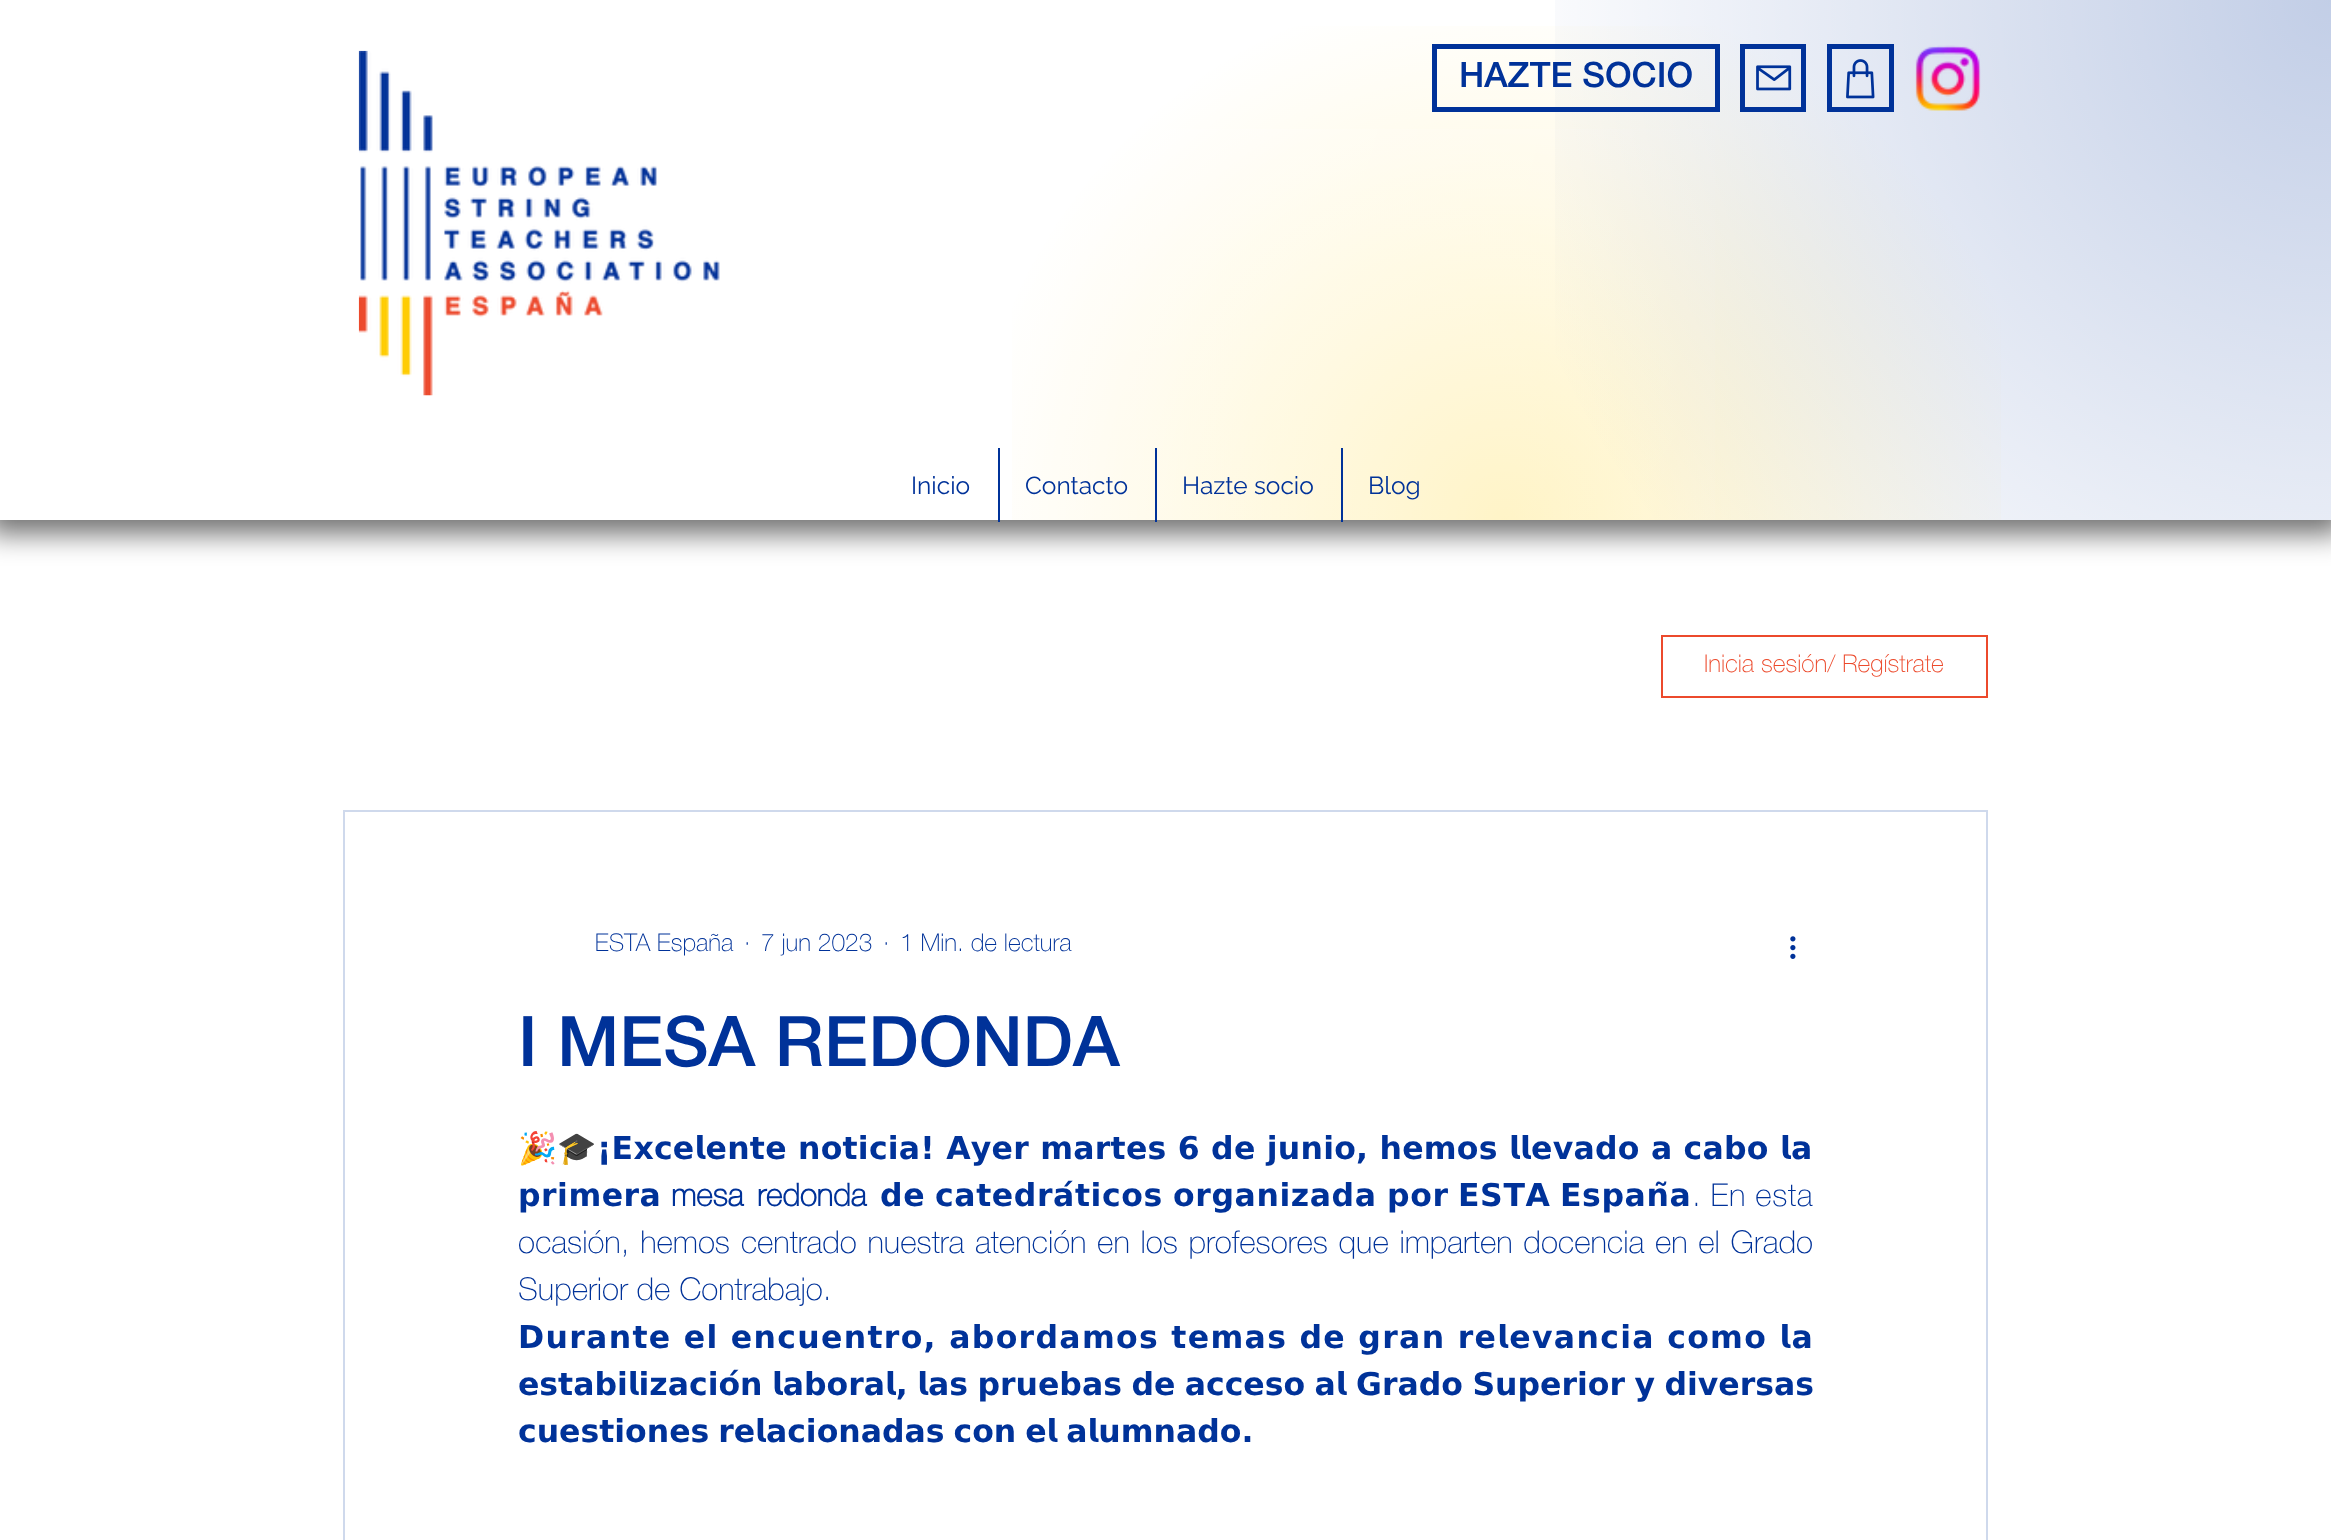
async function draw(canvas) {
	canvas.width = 2331;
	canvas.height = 1540;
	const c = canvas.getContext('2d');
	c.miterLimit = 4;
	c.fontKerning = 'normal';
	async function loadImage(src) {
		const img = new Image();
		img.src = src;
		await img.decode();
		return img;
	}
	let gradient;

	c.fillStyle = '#fff';
	c.fillRect(0, 0, 2331, 1540);
	c.save();
	c.beginPath();
	c.moveTo(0, 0);
	c.lineTo(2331, 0);
	c.lineTo(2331, 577);
	c.lineTo(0, 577);
	c.closePath();
	c.moveTo(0, 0);
	c.lineTo(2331, 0);
	c.lineTo(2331, 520);
	c.lineTo(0, 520);
	c.closePath();
	c.clip('evenodd');
	c.fillStyle = '#0000008f';
	c.filter = 'blur(14px)';
	c.beginPath();
	c.rect(-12, -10, 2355, 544);
	c.fill();
	c.filter = 'none';
	c.restore();
	gradient = c.createRadialGradient(1140, 257, 0, 1140, 257, 1220);
	gradient.addColorStop(0, '#ffffff3d');
	gradient.addColorStop(1, '#ffffff00');
	c.fillStyle = gradient;
	c.fillRect(398, 519, 1484, 1);
	gradient = c.createRadialGradient(1505, 520, 0, 1505, 520, 1593);
	gradient.addColorStop(0, '#ffcc003d');
	gradient.addColorStop(0.34, '#ffcc0000');
	c.fillStyle = gradient;
	c.fillRect(1012, 26, 989, 494);
	gradient = c.createRadialGradient(1106, 76, 0, 1106, 76, 1303);
	gradient.addColorStop(0, '#ffffff3d');
	gradient.addColorStop(0.7, '#ffffff00');
	c.fillStyle = gradient;
	c.fillRect(808, 129, 907, 391);
	gradient = c.createRadialGradient(2331, 0, 0, 2331, 0, 2388);
	gradient.addColorStop(0, '#0032993d');
	gradient.addColorStop(0.36, '#00329900');
	c.fillStyle = gradient;
	c.fillRect(1555, 0, 776, 520);
	c.drawImage(await loadImage('img1.png'), 358, 50, 362, 346);
	c.strokeStyle = '#003299';
	c.lineWidth = 5;
	c.strokeRect(1434.5, 46.5, 283, 63);
	c.font = '500 35px Helvetica Neue';
	c.fillStyle = '#003299';
	c.fillText('HAZTE SOCIO', 1459, 87);
	c.strokeRect(1742.5, 46.5, 61, 63);
	c.drawImage(await loadImage('img2.png'), 1756, 65, 36, 26);
	c.strokeRect(1829.5, 46.5, 62, 63);
	c.drawImage(await loadImage('img3.png'), 1846, 59, 29, 40);
	c.drawImage(await loadImage('img4.png'), 1915, 45, 66, 66);
	c.font = '24.5px Raleway';
	c.fillText('Inicio', 911, 494);
	c.fillRect(998, 448, 2, 74);
	c.fillText('Contacto', 1025, 494);
	c.fillRect(1155, 448, 2, 74);
	c.fillText('Hazte socio', 1182, 494);
	c.fillRect(1341, 448, 2, 74);
	c.fillText('Blog', 1368, 494);
	c.strokeStyle = '#ec4a2c';
	c.lineWidth = 2;
	c.strokeRect(1662, 636, 325, 61);
	c.font = '100 24.5px Helvetica Neue';
	c.fillStyle = '#ec4a2c';
	c.fillText('Inicia sesión/ Regístrate', 1704, 672);
	c.strokeStyle = '#cfd9ec';
	c.strokeRect(344, 811, 1643, 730);
	c.fillStyle = '#003299';
	for (const [text, x, y] of [
		['ESTA España', 595, 951],
		['·', 744, 951],
		['7 jun 2023', 761, 951],
		['·', 883, 951],
		['1 Min. de lectura', 900, 951],
	]) {
		c.fillText(text, x, y);
	}
	c.drawImage(await loadImage('img5.png'), 1790, 936, 6, 23);
	c.font = '500 70px Helvetica Neue';
	c.fillText('I MESA REDONDA', 518, 1066);
	c.letterSpacing = '0.25px';
	c.font = '31.5px Noto Color Emoji';
	c.fillText('🎉🎓', 518, 1159);
	c.font = 'bold 31.5px DejaVu Sans';
	c.fillText('¡𝗘𝘅𝗰𝗲𝗹𝗲𝗻𝘁𝗲 𝗻𝗼𝘁𝗶𝗰𝗶𝗮! 𝗔𝘆𝗲𝗿 𝗺𝗮𝗿𝘁𝗲𝘀 𝟲 𝗱𝗲 𝗷𝘂𝗻𝗶𝗼, 𝗵𝗲𝗺𝗼𝘀 𝗹𝗹𝗲𝘃𝗮𝗱𝗼 𝗮 𝗰𝗮𝗯𝗼 𝗹𝗮', 597, 1159);
	c.letterSpacing = '0.5px';
	c.fillText('𝗽𝗿𝗶𝗺𝗲𝗿𝗮', 518, 1206);
	c.letterSpacing = '0px';
	c.wordSpacing = '5px';
	c.font = 'bold 31.5px Helvetica Neue';
	c.fillText('mesa redonda', 671, 1206);
	c.letterSpacing = '0.6px';
	c.wordSpacing = '0px';
	c.font = 'bold 31.5px DejaVu Sans';
	for (const [text, x, y] of [
		['𝗱𝗲', 880, 1206],
		['𝗰𝗮𝘁𝗲𝗱𝗿𝗮́𝘁𝗶𝗰𝗼𝘀', 935, 1206],
		['𝗼𝗿𝗴𝗮𝗻𝗶𝘇𝗮𝗱𝗮', 1173, 1206],
		['𝗽𝗼𝗿', 1387, 1206],
		['𝗘𝗦𝗧𝗔', 1458, 1206],
		['𝗘𝘀𝗽𝗮𝗻̃𝗮', 1560, 1206],
	]) {
		c.fillText(text, x, y);
	}
	c.font = '100 31.5px Helvetica Neue';
	c.fillText('. En esta', 1692, 1206);
	c.letterSpacing = '0px';
	c.wordSpacing = '1.9px';
	c.fillText('ocasión, hemos centrado nuestra atención en los profesores que imparten docencia en el Grado', 518, 1253);
	c.wordSpacing = '0px';
	c.fillText('Superior de Contrabajo.', 518, 1300);
	c.letterSpacing = '1.32px';
	c.font = 'bold 31.5px DejaVu Sans';
	c.fillText('Durante el encuentro, 𝗮𝗯𝗼𝗿𝗱𝗮𝗺𝗼𝘀 𝘁𝗲𝗺𝗮𝘀 𝗱𝗲 𝗴𝗿𝗮𝗻 𝗿𝗲𝗹𝗲𝘃𝗮𝗻𝗰𝗶𝗮 𝗰𝗼𝗺𝗼 𝗹𝗮', 518, 1348);
	c.letterSpacing = '0px';
	c.wordSpacing = '-1.5px';
	c.fillText('𝗲𝘀𝘁𝗮𝗯𝗶𝗹𝗶𝘇𝗮𝗰𝗶𝗼́𝗻 𝗹𝗮𝗯𝗼𝗿𝗮𝗹, 𝗹𝗮𝘀 𝗽𝗿𝘂𝗲𝗯𝗮𝘀 𝗱𝗲 𝗮𝗰𝗰𝗲𝘀𝗼 𝗮𝗹 𝗚𝗿𝗮𝗱𝗼 𝗦𝘂𝗽𝗲𝗿𝗶𝗼𝗿 𝘆 𝗱𝗶𝘃𝗲𝗿𝘀𝗮𝘀', 518, 1395);
	c.wordSpacing = '-2px';
	c.fillText('𝗰𝘂𝗲𝘀𝘁𝗶𝗼𝗻𝗲𝘀 𝗿𝗲𝗹𝗮𝗰𝗶𝗼𝗻𝗮𝗱𝗮𝘀 𝗰𝗼𝗻 𝗲𝗹 𝗮𝗹𝘂𝗺𝗻𝗮𝗱𝗼.', 518, 1442);
}

draw(document.querySelector('canvas'));
